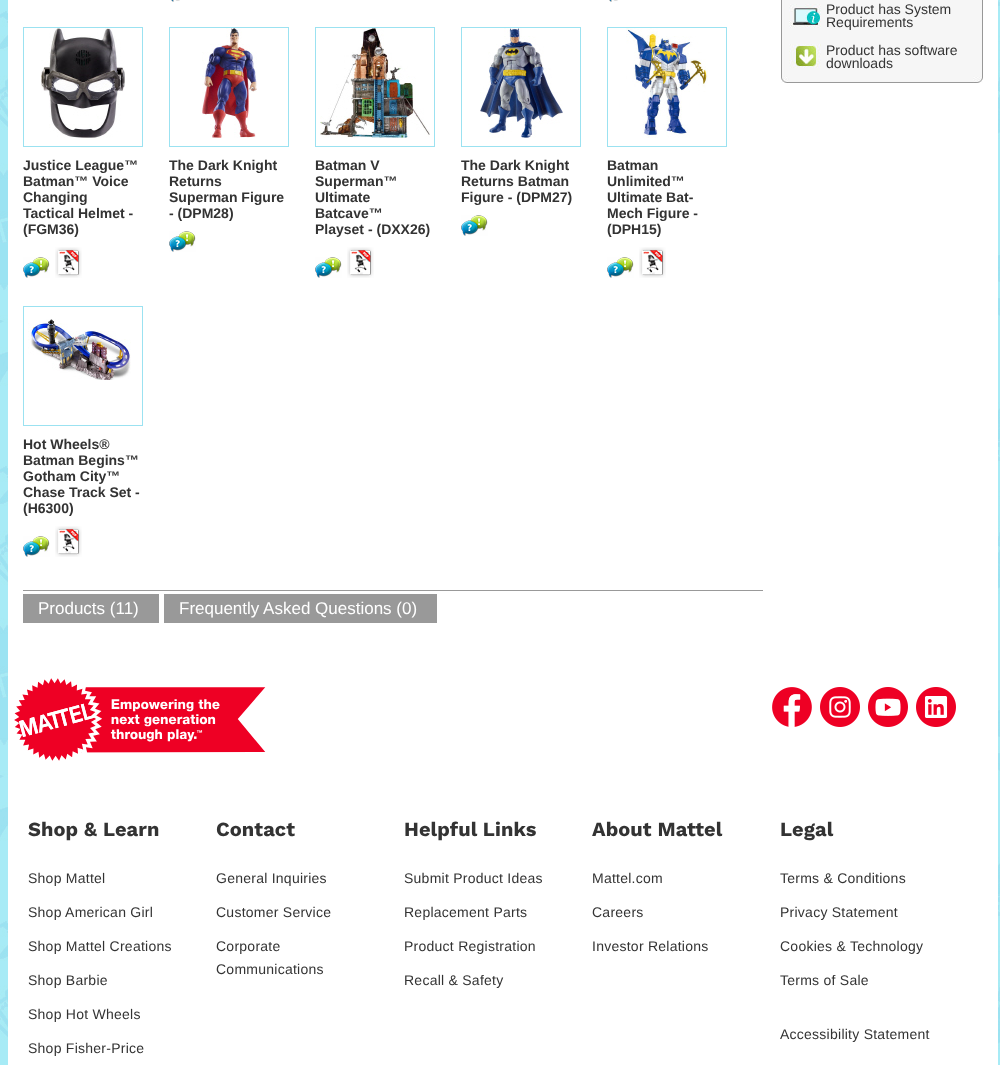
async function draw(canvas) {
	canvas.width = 1000;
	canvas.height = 1065;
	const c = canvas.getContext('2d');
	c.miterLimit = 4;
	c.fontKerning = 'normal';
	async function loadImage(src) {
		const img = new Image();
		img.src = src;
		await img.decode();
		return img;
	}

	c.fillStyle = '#fff';
	c.fillRect(0, 0, 1000, 1065);
	c.drawImage(await loadImage('img1.png'), 0, 0, 1000, 1065);
	c.fillRect(8, 0, 990, 1065);
	c.drawImage(await loadImage('img2.png'), 781, 0, 202, 83);
	c.font = '14px Liberation Sans';
	c.fillStyle = '#333';
	for (const [text, x, y] of [
		['Product has System', 826, 14],
		['Requirements', 826, 27],
		['Product has software', 826, 55],
		['downloads', 826, 68],
	]) {
		c.fillText(text, x, y);
	}
	c.drawImage(await loadImage('img3.png'), 171, 0, 9, 2);
	c.drawImage(await loadImage('img3.png'), 609, 0, 9, 2);
	c.strokeStyle = '#9be2f1';
	c.strokeRect(23.5, 27.5, 119, 119);
	c.drawImage(await loadImage('img4.png'), 41, 28, 84, 110);
	c.font = 'bold 14px Liberation Sans';
	for (const [text, x, y] of [
		['Justice League™', 23, 170],
		['Batman™ Voice', 23, 186],
		['Changing', 23, 202],
		['Tactical Helmet -', 23, 218],
		['(FGM36)', 23, 234],
	]) {
		c.fillText(text, x, y);
	}
	c.drawImage(await loadImage('img5.png'), 23, 257, 27, 21);
	c.drawImage(await loadImage('img6.png'), 55, 247, 27, 31);
	c.strokeRect(169.5, 27.5, 119, 119);
	c.drawImage(await loadImage('img7.png'), 202, 28, 55, 110);
	for (const [text, x, y] of [
		['The Dark Knight', 169, 170],
		['Returns', 169, 186],
		['Superman Figure', 169, 202],
		['- (DPM28)', 169, 218],
	]) {
		c.fillText(text, x, y);
	}
	c.drawImage(await loadImage('img5.png'), 169, 231, 27, 21);
	c.strokeRect(315.5, 27.5, 119, 119);
	c.drawImage(await loadImage('img8.png'), 320, 28, 110, 110);
	for (const [text, x, y] of [
		['Batman V', 315, 170],
		['Superman™', 315, 186],
		['Ultimate', 315, 202],
		['Batcave™', 315, 218],
		['Playset - (DXX26)', 315, 234],
	]) {
		c.fillText(text, x, y);
	}
	c.drawImage(await loadImage('img5.png'), 315, 257, 27, 21);
	c.drawImage(await loadImage('img6.png'), 347, 247, 27, 31);
	c.strokeRect(461.5, 27.5, 119, 119);
	c.drawImage(await loadImage('img9.png'), 480, 28, 83, 110);
	for (const [text, x, y] of [
		['The Dark Knight', 461, 170],
		['Returns Batman', 461, 186],
		['Figure - (DPM27)', 461, 202],
	]) {
		c.fillText(text, x, y);
	}
	c.drawImage(await loadImage('img5.png'), 461, 215, 27, 21);
	c.strokeRect(607.5, 27.5, 119, 119);
	c.drawImage(await loadImage('img10.png'), 626, 28, 82, 110);
	for (const [text, x, y] of [
		['Batman', 607, 170],
		['Unlimited™', 607, 186],
		['Ultimate Bat-', 607, 202],
		['Mech Figure -', 607, 218],
		['(DPH15)', 607, 234],
	]) {
		c.fillText(text, x, y);
	}
	c.drawImage(await loadImage('img5.png'), 607, 257, 27, 21);
	c.drawImage(await loadImage('img6.png'), 639, 247, 27, 31);
	c.strokeRect(23.5, 306.5, 119, 119);
	c.drawImage(await loadImage('img11.png'), 28, 319, 103, 61);
	for (const [text, x, y] of [
		['Hot Wheels®', 23, 449],
		['Batman Begins™', 23, 465],
		['Gotham City™', 23, 481],
		['Chase Track Set -', 23, 497],
		['(H6300)', 23, 513],
	]) {
		c.fillText(text, x, y);
	}
	c.drawImage(await loadImage('img5.png'), 23, 536, 27, 21);
	c.drawImage(await loadImage('img6.png'), 55, 526, 27, 31);
	c.fillStyle = '#999';
	c.fillRect(23, 590, 740, 1);
	c.fillRect(23, 594, 136, 29);
	c.font = '17px Liberation Sans';
	c.fillStyle = '#fff';
	c.fillText('Products (11)', 38, 614);
	c.fillStyle = '#999';
	c.fillRect(164, 594, 273, 29);
	c.fillStyle = '#fff';
	c.fillText('Frequently Asked Questions (0)', 179, 614);
	c.drawImage(await loadImage('img12.png'), 14, 678, 252, 83);
	c.drawImage(await loadImage('img13.png'), 772, 687, 40, 40);
	c.drawImage(await loadImage('img14.png'), 820, 687, 40, 40);
	c.drawImage(await loadImage('img15.png'), 868, 687, 40, 40);
	c.drawImage(await loadImage('img16.png'), 916, 687, 40, 40);
	c.letterSpacing = '0.1px';
	c.font = 'bold 20px Work Sans';
	c.fillStyle = '#333';
	c.fillText('Shop & Learn', 28, 836);
	c.letterSpacing = '0.25px';
	c.font = '14px Liberation Sans';
	for (const [text, x, y] of [
		['Shop Mattel', 28, 883],
		['Shop American Girl', 28, 917],
		['Shop Mattel Creations', 28, 951],
		['Shop Barbie', 28, 985],
		['Shop Hot Wheels', 28, 1019],
		['Shop Fisher-Price', 28, 1053],
	]) {
		c.fillText(text, x, y);
	}
	c.letterSpacing = '0.1px';
	c.font = 'bold 20px Work Sans';
	c.fillText('Contact', 216, 836);
	c.letterSpacing = '0.25px';
	c.font = '14px Liberation Sans';
	for (const [text, x, y] of [
		['General Inquiries', 216, 883],
		['Customer Service', 216, 917],
		['Corporate', 216, 951],
		['Communications', 216, 974],
	]) {
		c.fillText(text, x, y);
	}
	c.letterSpacing = '0.1px';
	c.font = 'bold 20px Work Sans';
	c.fillText('Helpful Links', 404, 836);
	c.letterSpacing = '0.25px';
	c.font = '14px Liberation Sans';
	for (const [text, x, y] of [
		['Submit Product Ideas', 404, 883],
		['Replacement Parts', 404, 917],
		['Product Registration', 404, 951],
		['Recall & Safety', 404, 985],
	]) {
		c.fillText(text, x, y);
	}
	c.letterSpacing = '0.1px';
	c.font = 'bold 20px Work Sans';
	c.fillText('About Mattel', 592, 836);
	c.letterSpacing = '0.25px';
	c.font = '14px Liberation Sans';
	for (const [text, x, y] of [
		['Mattel.com', 592, 883],
		['Careers', 592, 917],
		['Investor Relations', 592, 951],
	]) {
		c.fillText(text, x, y);
	}
	c.letterSpacing = '0.1px';
	c.font = 'bold 20px Work Sans';
	c.fillText('Legal', 780, 836);
	c.letterSpacing = '0.25px';
	c.font = '14px Liberation Sans';
	for (const [text, x, y] of [
		['Terms & Conditions', 780, 883],
		['Privacy Statement', 780, 917],
		['Cookies & Technology', 780, 951],
		['Terms of Sale', 780, 985],
		['Accessibility Statement', 780, 1039],
	]) {
		c.fillText(text, x, y);
	}
}

draw(document.querySelector('canvas'));
